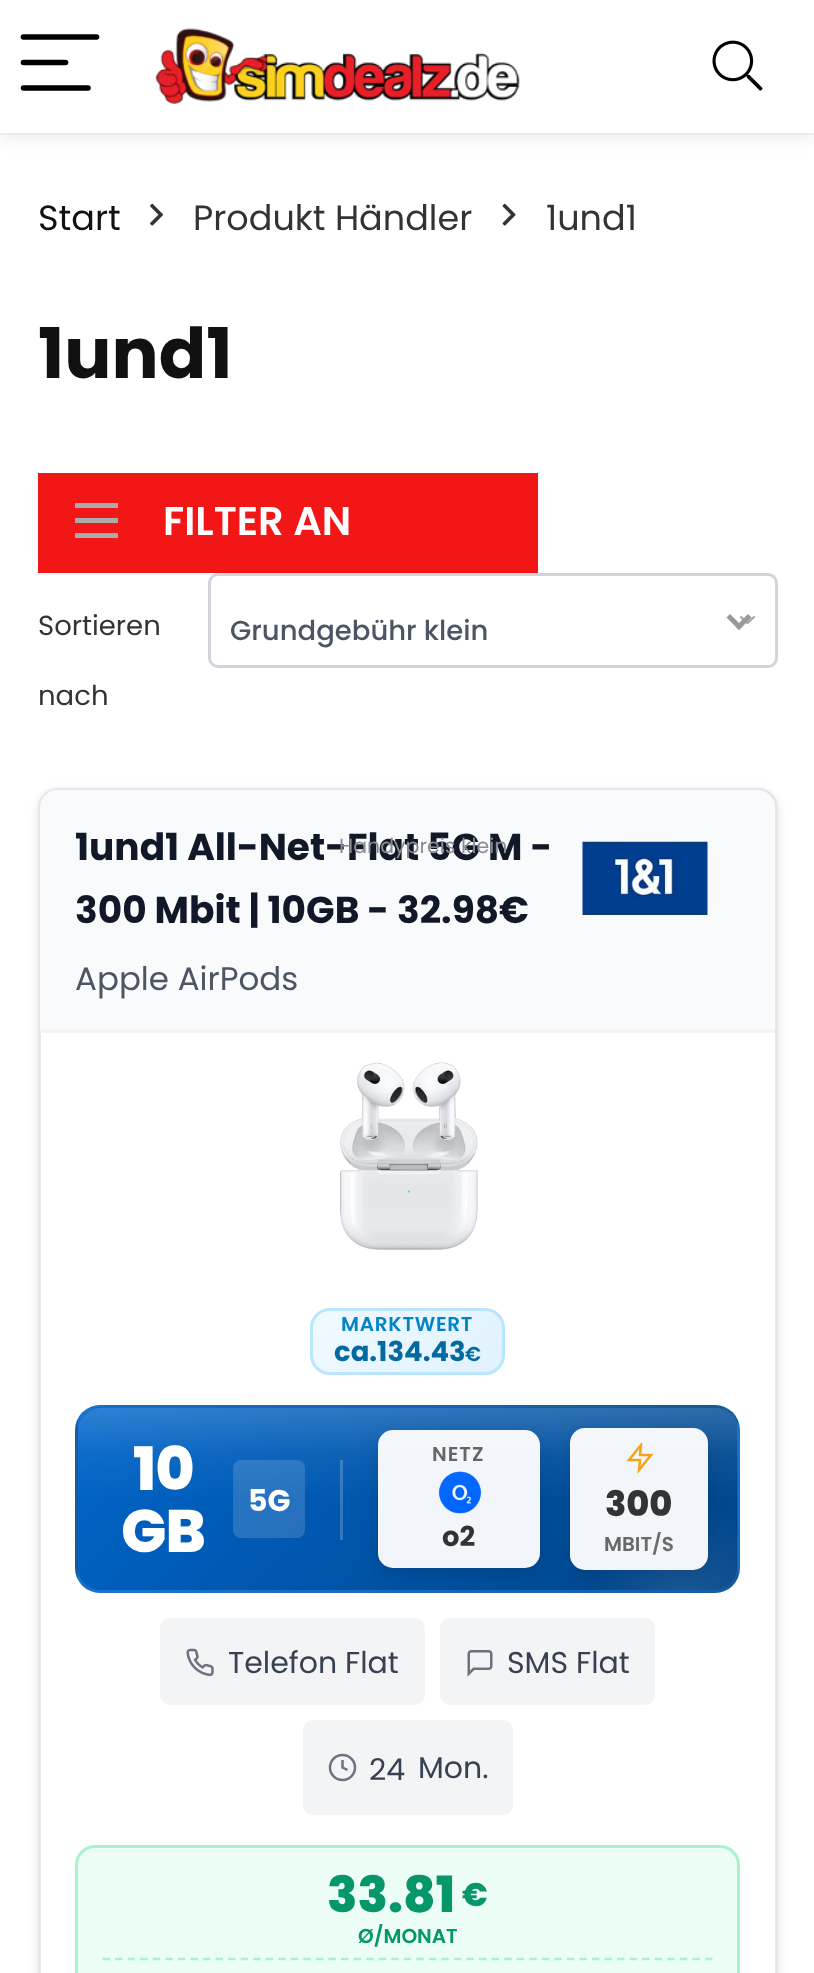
async function draw(canvas) {
	canvas.width = 814;
	canvas.height = 1973;
	const c = canvas.getContext('2d');
	c.miterLimit = 4;
	c.fontKerning = 'normal';
	async function loadImage(src) {
		const img = new Image();
		img.src = src;
		await img.decode();
		return img;
	}
	let gradient;

	c.fillStyle = '#fff';
	c.fillRect(0, 0, 814, 1973);
	c.strokeStyle = '#00000008';
	c.lineWidth = 3;
	c.strokeRect(-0.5, -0.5, 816, 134);
	c.fillStyle = '#0000001a';
	c.filter = 'blur(10px)';
	c.beginPath();
	c.rect(0, 3, 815, 132);
	c.fill();
	c.filter = 'none';
	c.fillStyle = '#fff';
	c.fillRect(0, 0, 814, 133);
	c.beginPath();
	c.moveTo(23.5, 37);
	c.lineTo(96.5, 37);
	c.strokeStyle = '#000';
	c.lineWidth = 5.6;
	c.lineCap = 'round';
	c.stroke();
	c.beginPath();
	c.moveTo(23.5, 62.5);
	c.lineTo(65.5, 62.5);
	c.stroke();
	c.beginPath();
	c.moveTo(23.5, 88);
	c.lineTo(88, 88);
	c.stroke();
	c.drawImage(await loadImage('img1.png'), 155, 28, 365, 76);
	c.drawImage(await loadImage('img2.png'), 712, 40, 51, 51);
	c.font = '35px Poppins';
	c.fillStyle = '#111';
	c.fillText('Start', 38, 230);
	c.drawImage(await loadImage('img3.png'), 150, 203, 13, 23);
	c.fillStyle = '#333';
	c.fillText('Produkt Händler', 193, 230);
	c.drawImage(await loadImage('img4.png'), 502, 203, 14, 23);
	c.fillText('1und1', 546, 230);
	c.font = 'bold 70px Poppins';
	c.fillStyle = '#111';
	c.fillText('1und1', 38, 378);
	for (const [x, y, w, h, color] of [
		[38, 473, 500, 100, '#f21616'],
		[75, 518, 43, 5, '#ababab'],
		[75, 503, 43, 5, '#ababab'],
		[75, 533, 43, 5, '#ababab'],
	]) {
		c.fillStyle = color;
		c.fillRect(x, y, w, h);
	}
	c.font = '600 40px Poppins';
	c.fillStyle = '#fff';
	c.fillText('FILTER AN', 163, 535);
	c.font = '27.5px Poppins';
	c.fillStyle = '#333';
	c.fillText('Sortieren', 38, 635);
	c.fillText('nach', 38, 705);
	c.beginPath();
	c.moveTo(741, 617);
	c.lineTo(747.5, 623);
	c.lineTo(754, 617);
	c.strokeStyle = '#9ca3af';
	c.lineWidth = 2.1;
	c.lineJoin = 'round';
	c.stroke();
	c.beginPath();
	c.roundRect(209.5, 574.5, 567, 92, 8.5);
	c.strokeStyle = '#d1d5db';
	c.lineWidth = 3;
	c.lineJoin = 'miter';
	c.stroke();
	c.font = '500 27.5px Poppins';
	c.fillStyle = '#4b5563';
	c.fillText('Grundgebühr klein', 230, 640);
	c.fillStyle = '#999';
	c.beginPath();
	c.moveTo(748, 614);
	c.lineTo(751.5, 617.5);
	c.lineTo(739, 630);
	c.lineTo(735.5, 626.5);
	c.closePath();
	c.fill();
	c.beginPath();
	c.moveTo(730, 614);
	c.lineTo(742.5, 626.5);
	c.lineTo(739, 630);
	c.lineTo(726.5, 617.5);
	c.closePath();
	c.fill();
	c.fillStyle = '#0000001a';
	c.filter = 'blur(4px)';
	c.beginPath();
	c.roundRect(38, 790, 740, 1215, 20);
	c.fill();
	c.filter = 'none';
	c.fillStyle = '#fff';
	c.beginPath();
	c.roundRect(39.5, 789.5, 737, 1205, 18.5);
	c.fill();
	c.strokeStyle = '#e5e7eb';
	c.stroke();
	c.fillStyle = '#f9fafb';
	c.beginPath();
	c.roundRect(40, 790, 735, 243, [18, 18, 0, 0]);
	c.fill();
	c.font = 'bold 37.5px Poppins';
	c.fillStyle = '#111827';
	c.fillText('1und1 All-Net-Flat 5G M -', 75, 860);
	c.font = '20.5px Poppins';
	c.fillStyle = '#898c94';
	c.fillText('Handypreis klein', 339, 853);
	c.fillStyle = '#f3f4f6';
	c.fillRect(40, 1030, 735, 3);
	c.font = 'bold 37.5px Poppins';
	c.fillStyle = '#111827';
	c.fillText('300 Mbit | 10GB - 32.98€', 75, 923);
	c.font = '32.5px Poppins';
	c.fillStyle = '#4b5563';
	c.fillText('Apple AirPods', 75, 990);
	c.drawImage(await loadImage('img5.png'), 582, 841, 126, 74);
	c.drawImage(await loadImage('img6.png'), 340, 1062, 138, 188);
	c.save();
	c.beginPath();
	c.roundRect(310, 1308, 195, 67, 20);
	c.clip();
	gradient = c.createLinearGradient(344, 1278, 471, 1404);
	gradient.addColorStop(0, '#f0f9ff');
	gradient.addColorStop(1, '#e0f2fe');
	c.fillStyle = gradient;
	c.fillRect(313, 1310, 190, 63);
	c.restore();
	c.beginPath();
	c.roundRect(311.5, 1309.5, 192, 64, 18.5);
	c.strokeStyle = '#bae6fd';
	c.stroke();
	c.letterSpacing = '0.75px';
	c.font = '600 20px Poppins';
	c.fillStyle = '#0284c7';
	c.fillText('MARKTWERT', 341, 1331);
	c.letterSpacing = '0px';
	c.font = 'bold 27.5px Poppins';
	c.fillStyle = '#0369a1';
	c.fillText('ca.134.43', 334, 1361);
	c.font = '600 20px Poppins';
	c.fillText('€', 465, 1361);
	c.save();
	c.beginPath();
	c.roundRect(75, 1405, 665, 188, 25);
	c.clip();
	gradient = c.createLinearGradient(197, 1106, 618, 1527);
	gradient.addColorStop(0, '#06c');
	gradient.addColorStop(1, '#048');
	c.fillStyle = gradient;
	c.fillRect(88, 1405, 639, 3);
	gradient = c.createLinearGradient(-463, 1288, -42, 1709);
	gradient.addColorStop(0, '#06c');
	gradient.addColorStop(1, '#048');
	c.fillStyle = gradient;
	c.fillRect(75, 1418, 3, 162);
	gradient = c.createLinearGradient(197, 1288, 618, 1709);
	gradient.addColorStop(0, '#06c');
	gradient.addColorStop(1, '#048');
	c.fillStyle = gradient;
	c.fillRect(78, 1408, 660, 182);
	c.restore();
	gradient = c.createLinearGradient(197, 1288, 618, 1709);
	gradient.addColorStop(0, '#3385d6');
	gradient.addColorStop(1, '#3369a0');
	c.fillStyle = gradient;
	c.fillRect(340, 1460, 3, 80);
	c.save();
	c.beginPath();
	c.roundRect(75, 1405, 665, 188, 25);
	c.clip();
	gradient = c.createLinearGradient(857, 1288, 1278, 1709);
	gradient.addColorStop(0, '#06c');
	gradient.addColorStop(1, '#048');
	c.fillStyle = gradient;
	c.fillRect(738, 1420, 2, 158);
	gradient = c.createLinearGradient(197, 1471, 618, 1892);
	gradient.addColorStop(0, '#06c');
	gradient.addColorStop(1, '#048');
	c.fillStyle = gradient;
	c.fillRect(88, 1590, 639, 3);
	c.restore();
	c.beginPath();
	c.roundRect(76.5, 1406.5, 662, 185, 23.5);
	c.strokeStyle = '#ffffff1a';
	c.stroke();
	c.fillStyle = '#ffffff26';
	c.beginPath();
	c.roundRect(233, 1460, 72, 78, 8);
	c.fill();
	c.save();
	c.beginPath();
	c.moveTo(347, 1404);
	c.lineTo(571, 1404);
	c.lineTo(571, 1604);
	c.lineTo(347, 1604);
	c.closePath();
	c.moveTo(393, 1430);
	c.lineTo(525, 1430);
	c.bezierCurveTo(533.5, 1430, 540, 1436.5, 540, 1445);
	c.lineTo(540, 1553);
	c.bezierCurveTo(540, 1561.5, 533.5, 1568, 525, 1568);
	c.lineTo(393, 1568);
	c.bezierCurveTo(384.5, 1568, 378, 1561.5, 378, 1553);
	c.lineTo(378, 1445);
	c.bezierCurveTo(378, 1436.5, 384.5, 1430, 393, 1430);
	c.closePath();
	c.clip('evenodd');
	c.fillStyle = '#00000026';
	c.filter = 'blur(10px)';
	c.beginPath();
	c.roundRect(378, 1435, 162, 138, 15);
	c.fill();
	c.filter = 'none';
	c.restore();
	c.fillStyle = '#fffffff2';
	c.beginPath();
	c.roundRect(378, 1430, 162, 138, 15);
	c.fill();
	c.drawImage(await loadImage('img7.png'), 438, 1471, 44, 43);
	c.save();
	c.beginPath();
	c.moveTo(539, 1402);
	c.lineTo(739, 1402);
	c.lineTo(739, 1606);
	c.lineTo(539, 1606);
	c.closePath();
	c.moveTo(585, 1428);
	c.lineTo(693, 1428);
	c.bezierCurveTo(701.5, 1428, 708, 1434.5, 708, 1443);
	c.lineTo(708, 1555);
	c.bezierCurveTo(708, 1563.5, 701.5, 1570, 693, 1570);
	c.lineTo(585, 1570);
	c.bezierCurveTo(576.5, 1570, 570, 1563.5, 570, 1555);
	c.lineTo(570, 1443);
	c.bezierCurveTo(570, 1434.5, 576.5, 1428, 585, 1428);
	c.closePath();
	c.clip('evenodd');
	c.fillStyle = '#00000026';
	c.filter = 'blur(10px)';
	c.beginPath();
	c.roundRect(570, 1433, 138, 142, 15);
	c.fill();
	c.filter = 'none';
	c.restore();
	c.beginPath();
	c.roundRect(570, 1428, 138, 142, 15);
	c.fill();
	c.save();
	c.beginPath();
	c.rect(625, 1443, 30, 30);
	c.clip();
	c.beginPath();
	c.moveTo(641, 1445);
	c.lineTo(629, 1460);
	c.lineTo(640, 1460);
	c.lineTo(639, 1470);
	c.lineTo(651, 1455);
	c.lineTo(640, 1455);
	c.closePath();
	c.strokeStyle = '#f59e0b';
	c.lineWidth = 2.5;
	c.lineCap = 'butt';
	c.stroke();
	c.restore();
	gradient = c.createLinearGradient(408, 1408, 408, 1500);
	gradient.addColorStop(0, '#ffffff2e');
	gradient.addColorStop(0.5, '#ffffff0d');
	gradient.addColorStop(1, '#ffffff00');
	c.fillStyle = gradient;
	c.beginPath();
	c.roundRect(78, 1408, 660, 92, [23, 23, 0, 0]);
	c.fill();
	c.letterSpacing = '-1px';
	c.font = '800 60px Poppins';
	c.fillStyle = '#fff';
	c.fillText('10', 133, 1490);
	c.fillText('GB', 121, 1552);
	c.letterSpacing = '0px';
	c.font = 'bold 30px Poppins';
	c.fillText('5G', 248, 1511);
	c.letterSpacing = '1px';
	c.font = '600 20px Poppins';
	c.fillStyle = '#666';
	c.fillText('NETZ', 432, 1461);
	c.letterSpacing = '0px';
	c.font = 'bold 27.5px Poppins';
	c.fillStyle = '#333';
	c.fillText('o2', 442, 1546);
	c.font = '800 35px Poppins';
	c.fillText('300', 605, 1516);
	c.font = '600 20px Poppins';
	c.fillStyle = '#666';
	c.fillText('MBIT/S', 604, 1551);
	gradient = c.createRadialGradient(688, 1600, 0, 688, 1600, 141);
	gradient.addColorStop(0, '#ffffff1a');
	gradient.addColorStop(0.7, '#ffffff00');
	c.fillStyle = gradient;
	c.beginPath();
	c.roundRect(588, 1500, 150, 90, [0, 0, 23, 0]);
	c.fill();
	c.fillStyle = '#f3f4f6';
	c.beginPath();
	c.roundRect(160, 1618, 265, 87, 10);
	c.fill();
	c.drawImage(await loadImage('img8.png'), 186, 1648, 28, 29);
	c.font = '30px Poppins';
	c.fillStyle = '#374151';
	c.fillText('Telefon Flat', 228, 1673);
	c.fillStyle = '#f3f4f6';
	c.beginPath();
	c.roundRect(440, 1618, 215, 87, 10);
	c.fill();
	c.drawImage(await loadImage('img9.png'), 467, 1650, 26, 27);
	c.fillStyle = '#374151';
	c.fillText('SMS Flat', 507, 1673);
	c.fillStyle = '#f3f4f6';
	c.beginPath();
	c.roundRect(303, 1720, 210, 95, 10);
	c.fill();
	c.beginPath();
	c.arc(342.5, 1767.5, 12.5, 0, 2 * Math.PI);
	c.strokeStyle = '#6b7280';
	c.lineWidth = 2.5;
	c.stroke();
	c.beginPath();
	c.moveTo(342.5, 1760);
	c.lineTo(342.5, 1767.5);
	c.lineTo(347.5, 1770);
	c.lineCap = 'butt';
	c.stroke();
	c.fillStyle = '#374151';
	c.fillText('24', 369, 1780);
	c.fillText('Mon.', 418, 1778);
	c.fillStyle = '#ecfdf5';
	c.beginPath();
	c.roundRect(76.5, 1846.5, 662, 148, 18.5);
	c.fill();
	c.strokeStyle = '#a7f3d0';
	c.lineWidth = 3;
	c.stroke();
	c.font = '800 50px Poppins';
	c.fillStyle = '#059669';
	c.fillText('33.81', 327, 1912);
	c.font = '800 32.5px Poppins';
	c.fillText('€', 462, 1906);
	c.font = '600 20px Poppins';
	c.fillText('Ø/MONAT', 358, 1943);
	c.beginPath();
	c.moveTo(102.5, 1959);
	c.lineTo(712.5, 1959);
	c.lineWidth = 2.5;
	c.setLineDash([7.5, 5.05]);
	c.stroke();
}

draw(document.querySelector('canvas'));
